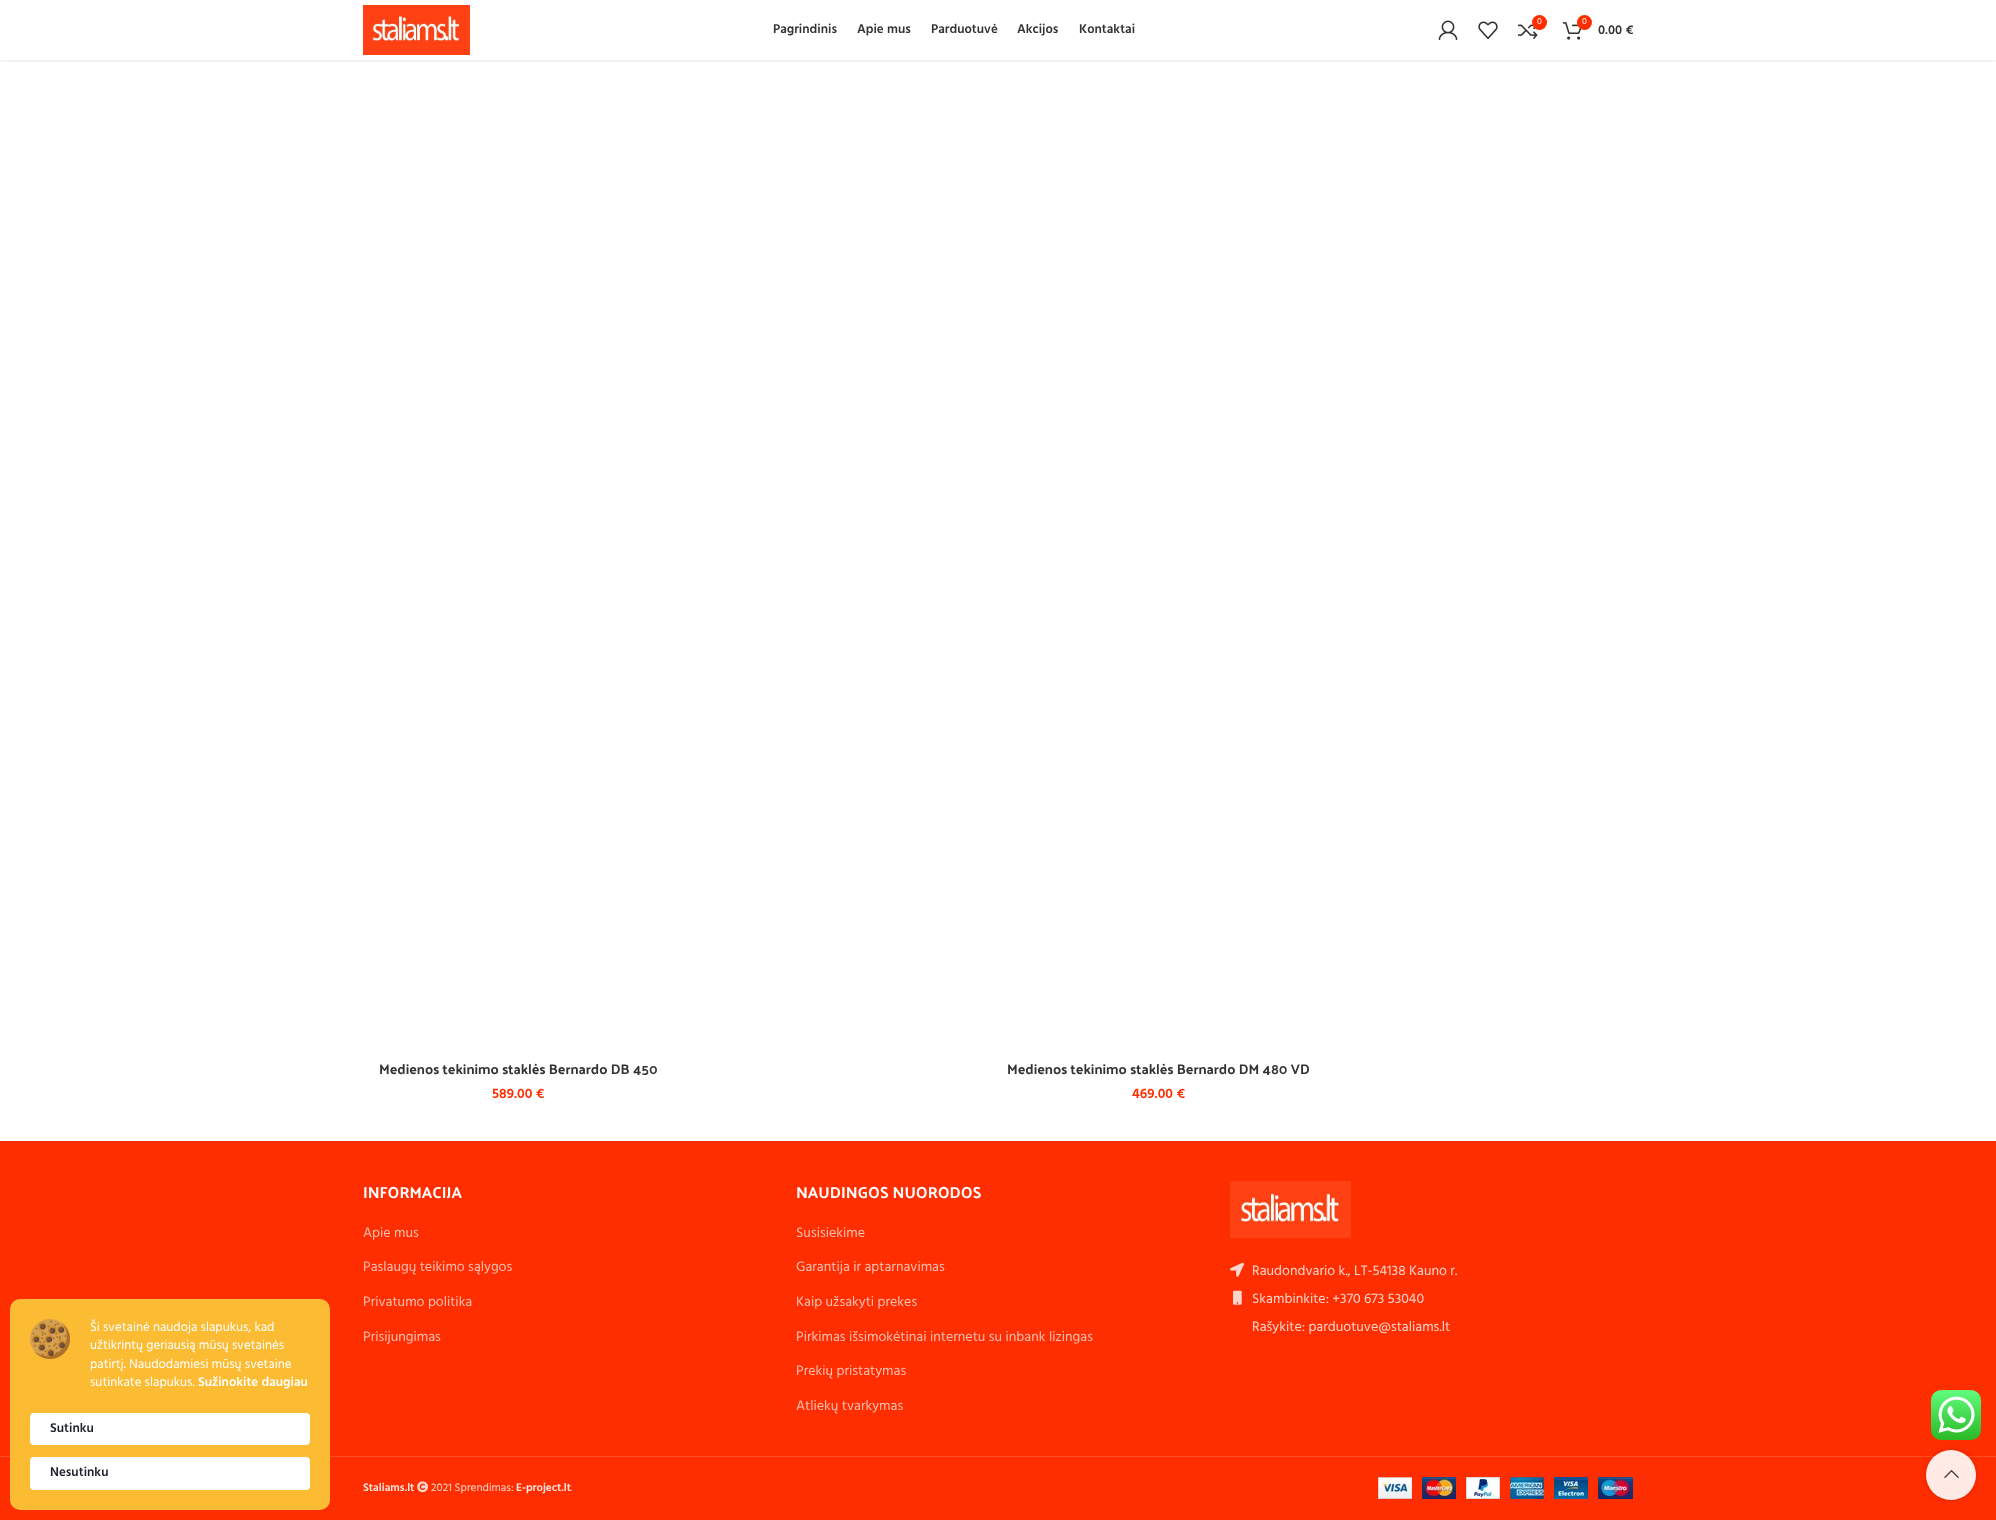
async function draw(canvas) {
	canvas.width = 1996;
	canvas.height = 1520;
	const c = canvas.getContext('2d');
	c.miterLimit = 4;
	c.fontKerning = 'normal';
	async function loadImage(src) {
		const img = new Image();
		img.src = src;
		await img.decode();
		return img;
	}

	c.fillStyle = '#fff';
	c.fillRect(0, 0, 1996, 1520);
	c.save();
	c.beginPath();
	c.rect(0, 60, 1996, 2);
	c.clip();
	c.fillStyle = '#0000001a';
	c.filter = 'blur(1.5px)';
	c.beginPath();
	c.rect(0, 1, 1996, 60);
	c.fill();
	c.filter = 'none';
	c.restore();
	c.drawImage(await loadImage('img1.png'), 363, 5, 107, 50);
	c.font = '600 13px Hind';
	c.fillStyle = '#333';
	for (const [text, x, y] of [
		['Pagrindinis', 773, 33],
		['Apie mus', 857, 33],
		['Parduotuvė', 931, 33],
		['Akcijos', 1017, 33],
		['Kontaktai', 1079, 33],
	]) {
		c.fillText(text, x, y);
	}
	c.drawImage(await loadImage('img2.png'), 1438, 20, 20, 20);
	c.drawImage(await loadImage('img3.png'), 1478, 21, 20, 18);
	c.drawImage(await loadImage('img4.png'), 1518, 24, 20, 15);
	c.fillStyle = '#ff2e00';
	c.beginPath();
	c.arc(1539.5, 22.5, 7.5, 0, 2 * Math.PI);
	c.fill();
	c.font = '9px Hind';
	c.fillStyle = '#fff';
	c.fillText('0', 1537, 24);
	c.drawImage(await loadImage('img5.png'), 1563, 22, 19, 18);
	c.fillStyle = '#ff2e00';
	c.beginPath();
	c.arc(1584.5, 22.5, 7.5, 0, 2 * Math.PI);
	c.fill();
	c.fillStyle = '#fff';
	c.fillText('0', 1582, 24);
	c.font = '600 13px Hind';
	c.fillStyle = '#333';
	c.fillText('0.00 €', 1598, 34);
	c.font = '14px Palanquin Dark';
	c.fillText('Medienos tekinimo staklės Bernardo DB 450', 379, 1074);
	c.font = '600 14px Hind';
	c.fillStyle = '#ff2e00';
	c.fillText('589.00 €', 492, 1098);
	c.font = '14px Palanquin Dark';
	c.fillStyle = '#333';
	c.fillText('Medienos tekinimo staklės Bernardo DM 480 VD', 1007, 1074);
	c.font = '600 14px Hind';
	c.fillStyle = '#ff2e00';
	c.fillText('469.00 €', 1132, 1098);
	c.fillRect(0, 1141, 1996, 379);
	c.fillStyle = '#ff4d26';
	c.fillRect(0, 1456, 1996, 1);
	c.fillStyle = '#fbbc34';
	c.beginPath();
	c.roundRect(10, 1299, 320, 211, 10);
	c.fill();
	c.drawImage(await loadImage('img6.png'), 30, 1319, 40, 40);
	c.font = '13px Hind';
	c.fillStyle = '#fff';
	for (const [text, x, y] of [
		['Ši svetainė naudoja slapukus, kad', 90, 1331],
		['užtikrintų geriausią mūsų svetainės', 90, 1349],
		['patirtį. Naudodamiesi mūsų svetaine', 90, 1368],
		['sutinkate slapukus.', 90, 1386],
	]) {
		c.fillText(text, x, y);
	}
	c.font = '600 13px Hind';
	c.fillText('Sužinokite daugiau', 198, 1386);
	c.beginPath();
	c.roundRect(30, 1413, 280, 32, 4);
	c.fill();
	c.fillStyle = '#1d2129';
	c.fillText('Sutinku', 50, 1432);
	c.fillStyle = '#fff';
	c.beginPath();
	c.roundRect(30, 1457, 280, 33, 4);
	c.fill();
	c.beginPath();
	c.roundRect(30.5, 1457.5, 279, 32, 3.5);
	c.strokeStyle = '#ffffff4d';
	c.stroke();
	c.fillStyle = '#1d2129';
	c.fillText('Nesutinku', 50, 1476);
	c.font = '600 11.25px Hind';
	c.fillStyle = '#ffeae6';
	c.fillText('Staliams.lt', 363, 1491);
	c.drawImage(await loadImage('img7.png'), 417, 1481, 11, 12);
	c.font = '11.25px Hind';
	c.fillStyle = '#ffd5cc';
	c.fillText('2021 Sprendimas:', 431, 1491);
	c.font = '600 11.25px Hind';
	c.fillStyle = '#ffeae6';
	c.fillText('E-project.lt', 516, 1491);
	c.font = '11.25px Hind';
	c.fillStyle = '#ffd5cc';
	c.fillText('.', 570, 1491);
	c.drawImage(await loadImage('img8.png'), 1378, 1477, 255, 22);
	c.font = '16px Palanquin Dark';
	c.fillStyle = '#fff';
	c.fillText('INFORMACIJA', 363, 1198);
	c.font = '14px Hind';
	c.fillStyle = '#ffc0b3';
	for (const [text, x, y] of [
		['Apie mus', 363, 1237],
		['Paslaugų teikimo sąlygos', 363, 1271],
		['Privatumo politika', 363, 1306],
		['Prisijungimas', 363, 1341],
	]) {
		c.fillText(text, x, y);
	}
	c.font = '16px Palanquin Dark';
	c.fillStyle = '#fff';
	c.fillText('NAUDINGOS NUORODOS', 796, 1198);
	c.font = '14px Hind';
	c.fillStyle = '#ffc0b3';
	for (const [text, x, y] of [
		['Susisiekime', 796, 1237],
		['Garantija ir aptarnavimas', 796, 1271],
		['Kaip užsakyti prekes', 796, 1306],
		['Pirkimas išsimokėtinai internetu su inbank lizingas', 796, 1341],
		['Prekių pristatymas', 796, 1375],
		['Atliekų tvarkymas', 796, 1410],
	]) {
		c.fillText(text, x, y);
	}
	c.drawImage(await loadImage('img9.png'), 1230, 1181, 121, 57);
	c.drawImage(await loadImage('img10.png'), 1230, 1262, 14, 15);
	c.fillStyle = '#ffd5cc';
	c.fillText('Raudondvario k., LT-54138 Kauno r.', 1252, 1275);
	c.drawImage(await loadImage('img11.png'), 1233, 1290, 9, 15);
	c.fillText('Skambinkite: +370 673 53040', 1252, 1303);
	c.fillText('Rašykite: parduotuve@staliams.lt', 1252, 1331);
	c.drawImage(await loadImage('img12.png'), 1931, 1390, 50, 50);
	c.save();
	c.beginPath();
	c.moveTo(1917, 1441);
	c.lineTo(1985, 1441);
	c.lineTo(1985, 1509);
	c.lineTo(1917, 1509);
	c.closePath();
	c.moveTo(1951, 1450);
	c.bezierCurveTo(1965, 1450, 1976, 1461, 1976, 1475);
	c.bezierCurveTo(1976, 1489, 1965, 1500, 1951, 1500);
	c.bezierCurveTo(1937, 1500, 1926, 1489, 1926, 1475);
	c.bezierCurveTo(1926, 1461, 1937, 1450, 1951, 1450);
	c.closePath();
	c.clip('evenodd');
	c.fillStyle = '#0000002b';
	c.filter = 'blur(2.5px)';
	c.beginPath();
	c.roundRect(1926, 1450, 50, 50, 25);
	c.fill();
	c.filter = 'none';
	c.restore();
	c.fillStyle = '#ffffffe6';
	c.beginPath();
	c.arc(1951, 1475, 25, 0, 2 * Math.PI);
	c.fill();
	c.drawImage(await loadImage('img13.png'), 1944, 1469, 15, 9);
}

draw(document.querySelector('canvas'));
